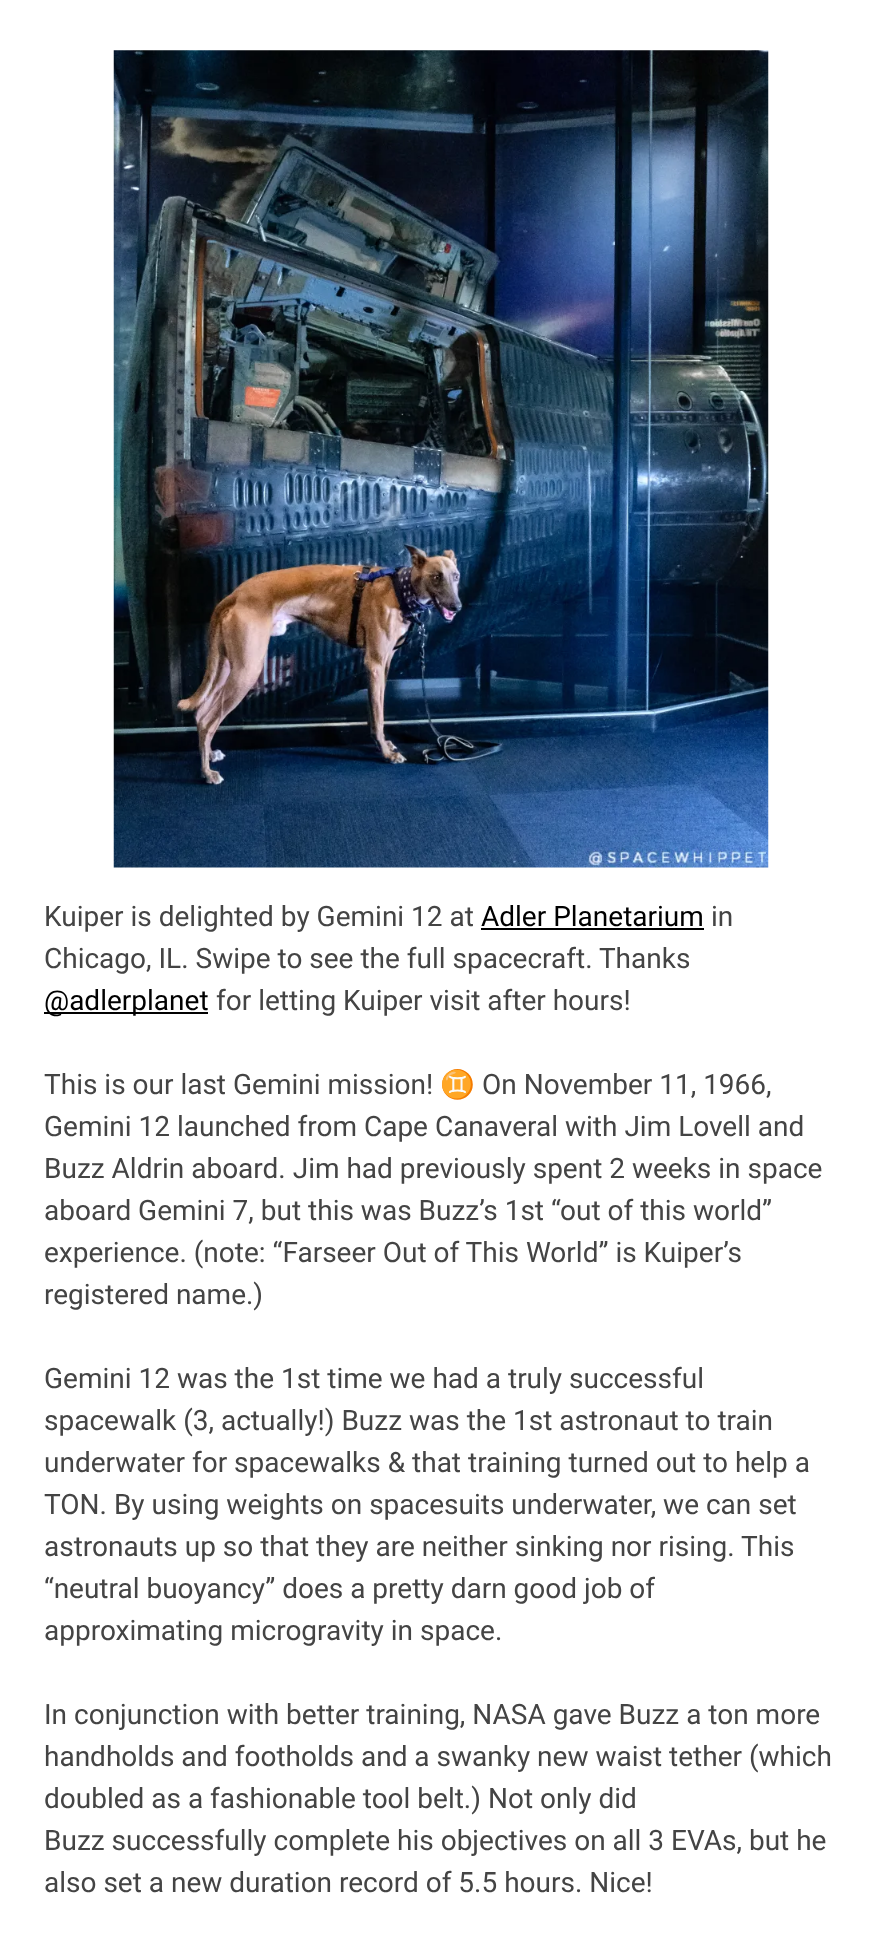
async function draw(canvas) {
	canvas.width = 881;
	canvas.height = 1951;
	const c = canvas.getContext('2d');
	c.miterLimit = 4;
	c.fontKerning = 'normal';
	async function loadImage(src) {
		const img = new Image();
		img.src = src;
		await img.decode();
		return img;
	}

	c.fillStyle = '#fff';
	c.fillRect(0, 0, 881, 1951);
	c.drawImage(await loadImage('img1.png'), 113, 50, 656, 818);
	c.font = '28px Roboto';
	c.fillStyle = '#444';
	c.fillText('Kuiper is delighted by Gemini 12 at', 44, 926);
	c.fillStyle = '#000';
	c.fillText('Adler Planetarium', 481, 926);
	c.fillRect(481, 928, 223, 2);
	c.fillStyle = '#444';
	c.fillText('in', 711, 926);
	c.fillText('Chicago, IL. Swipe to see the full spacecraft. Thanks', 44, 968);
	c.fillStyle = '#000';
	c.fillRect(44, 1012, 164, 2);
	c.fillText('@adlerplanet', 44, 1010);
	c.fillStyle = '#444';
	c.fillText('for letting Kuiper visit after hours!', 216, 1010);
	c.fillText('This is our last Gemini mission!', 44, 1094);
	c.font = '28px Noto Color Emoji';
	c.fillText('♊', 440, 1094);
	c.font = '28px Roboto';
	for (const [text, x, y] of [
		['On November 11, 1966,', 482, 1094],
		['Gemini 12 launched from Cape Canaveral with Jim Lovell and', 44, 1136],
		['Buzz Aldrin aboard. Jim had previously spent 2 weeks in space', 44, 1178],
		['aboard Gemini 7, but this was Buzz’s 1st “out of this world”', 44, 1220],
		['experience. (note: “Farseer Out of This World” is Kuiper’s', 44, 1262],
		['registered name.)', 44, 1304],
		['Gemini 12 was the 1st time we had a truly successful', 44, 1388],
		['spacewalk (3, actually!) Buzz was the 1st astronaut to train', 44, 1430],
		['underwater for spacewalks & that training turned out to help a', 44, 1472],
		['TON. By using weights on spacesuits underwater, we can set', 44, 1514],
		['astronauts up so that they are neither sinking nor rising. This', 44, 1556],
		['“neutral buoyancy” does a pretty darn good job of', 44, 1598],
		['approximating microgravity in space.', 44, 1640],
		['In conjunction with better training, NASA gave Buzz a ton more', 44, 1724],
		['handholds and footholds and a swanky new waist tether (which', 44, 1766],
		['doubled as a fashionable tool belt.) Not only did', 44, 1808],
		['Buzz successfully complete his objectives on all 3 EVAs, but he', 44, 1850],
		['also set a new duration record of 5.5 hours. Nice!', 44, 1892],
	]) {
		c.fillText(text, x, y);
	}
}

draw(document.querySelector('canvas'));
